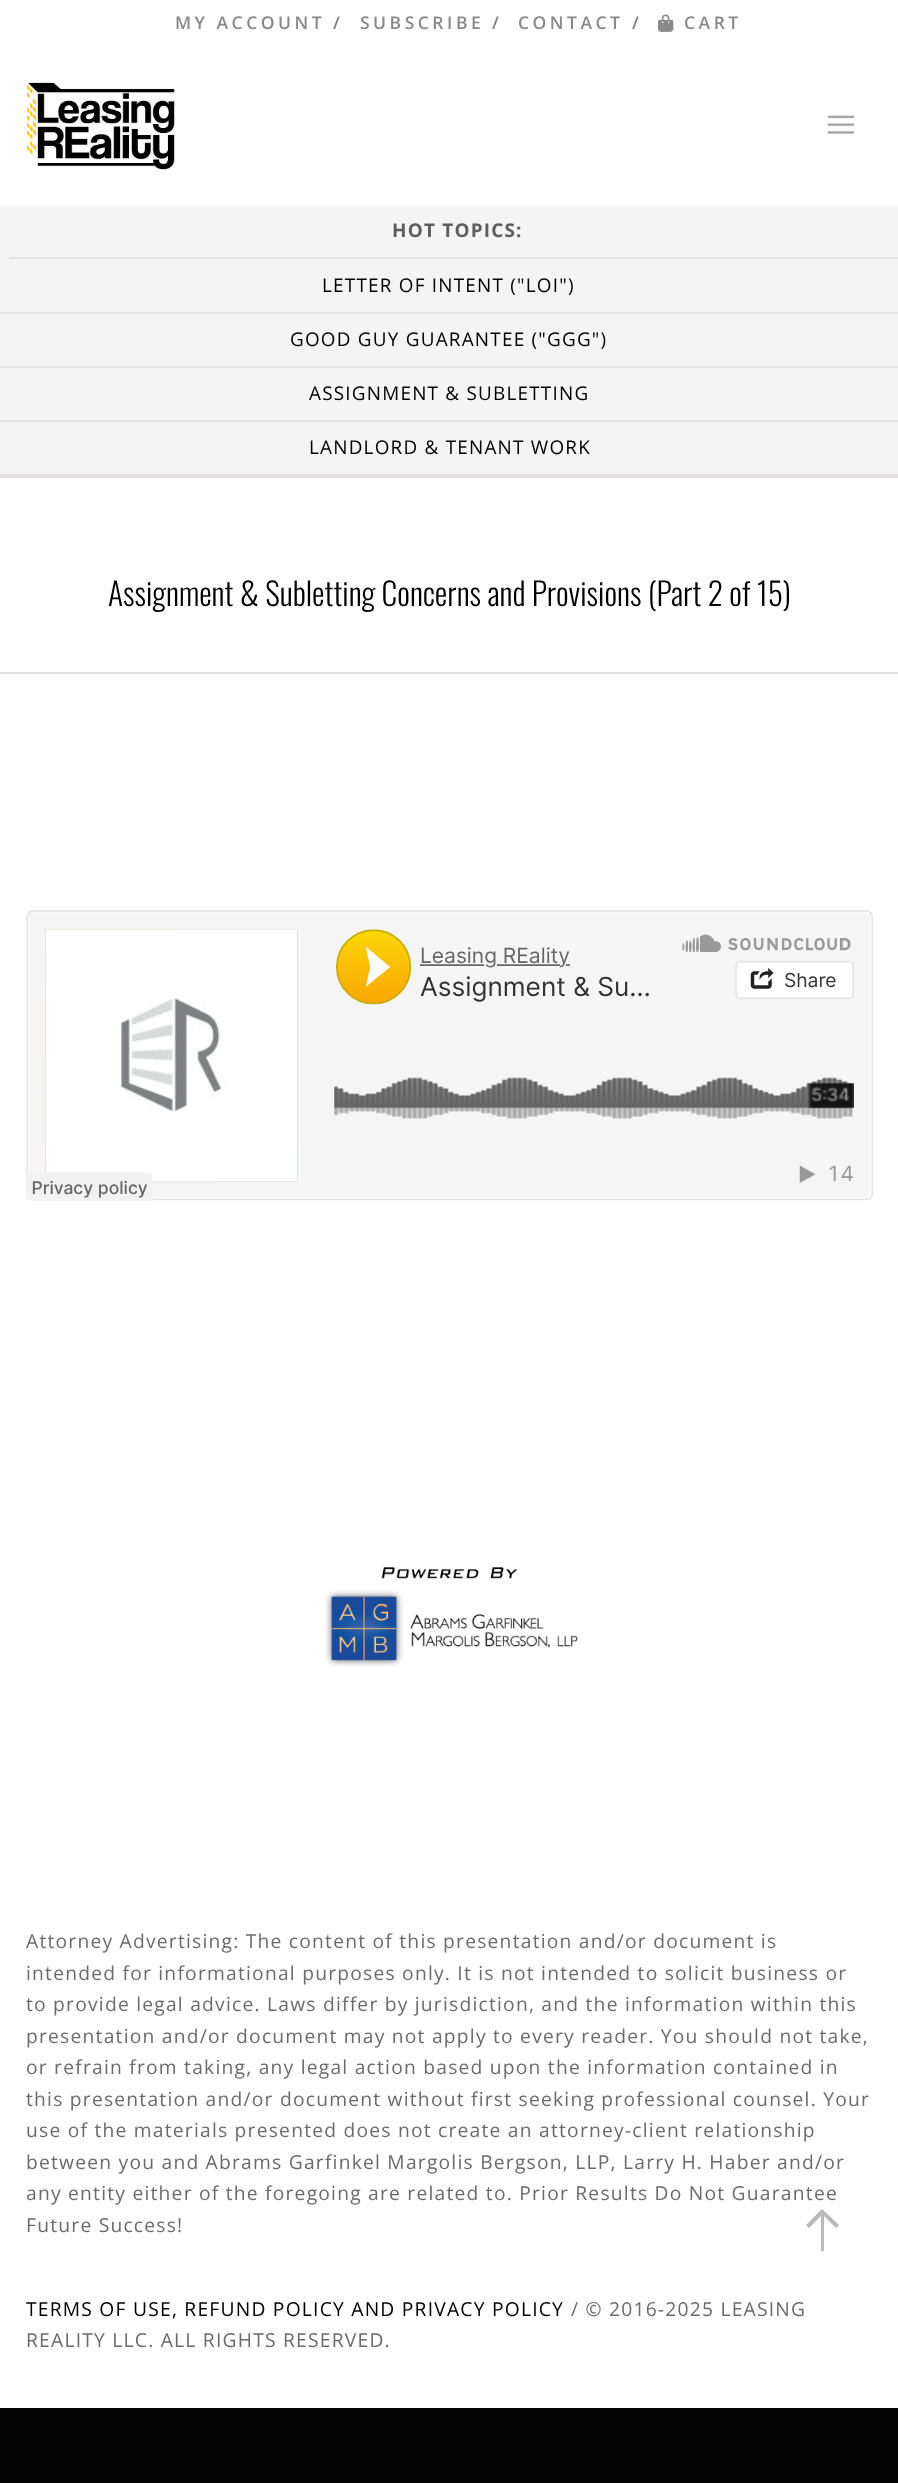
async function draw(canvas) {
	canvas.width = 898;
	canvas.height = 2483;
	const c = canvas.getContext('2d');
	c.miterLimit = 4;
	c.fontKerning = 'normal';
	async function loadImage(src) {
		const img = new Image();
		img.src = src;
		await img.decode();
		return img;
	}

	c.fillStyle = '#050505';
	c.fillRect(0, 0, 898, 2483);
	c.fillStyle = '#fff';
	c.fillRect(0, 0, 898, 2408);
	c.letterSpacing = '3.5px';
	c.font = '600 17.5px Open Sans';
	c.fillStyle = '#898989';
	c.fillText('MY ACCOUNT', 175, 29);
	c.fillStyle = '#808080';
	c.fillText('/', 333, 29);
	c.fillStyle = '#898989';
	c.fillText('SUBSCRIBE', 360, 29);
	c.fillStyle = '#808080';
	c.fillText('/', 492, 29);
	c.fillStyle = '#898989';
	c.fillText('CONTACT', 518, 29);
	c.fillStyle = '#808080';
	c.fillText('/', 632, 29);
	c.drawImage(await loadImage('img1.png'), 658, 14, 16, 18);
	c.fillStyle = '#898989';
	c.fillText('CART', 684, 29);
	c.drawImage(await loadImage('img2.png'), 27, 82, 148, 88);
	c.drawImage(await loadImage('img3.png'), 827, 115, 27, 19);
	for (const [x, y, w, h, color] of [
		[0, 474, 898, 4, '#e3e1e1'],
		[0, 205, 898, 269, '#f4f4f4'],
		[9, 257, 889, 2, '#e3e1e1'],
	]) {
		c.fillStyle = color;
		c.fillRect(x, y, w, h);
	}
	c.letterSpacing = '1.22px';
	c.font = 'bold 18.9px Open Sans';
	c.fillStyle = '#5e5e5e';
	c.fillText('HOT TOPICS:', 392, 237);
	c.fillStyle = '#e3e1e1';
	c.fillRect(0, 312, 898, 2);
	c.font = '18.9px Open Sans';
	c.fillStyle = '#000';
	c.fillText('LETTER OF INTENT ("LOI")', 322, 292);
	c.fillStyle = '#e3e1e1';
	c.fillRect(0, 366, 898, 2);
	c.fillStyle = '#000';
	c.fillText('GOOD GUY GUARANTEE ("GGG")', 290, 346);
	c.fillStyle = '#e3e1e1';
	c.fillRect(0, 420, 898, 2);
	c.fillStyle = '#000';
	c.fillText('ASSIGNMENT & SUBLETTING', 309, 400);
	c.fillText('LANDLORD & TENANT WORK', 309, 454);
	c.fillStyle = '#dedede';
	c.fillRect(0, 672, 898, 2);
	c.letterSpacing = '0px';
	c.font = '300 31.5px Oswald';
	c.fillStyle = '#000';
	c.fillText('Assignment & Subletting Concerns and Provisions (Part 2 of 15)', 108, 606);
	c.drawImage(await loadImage('img4.png'), 26, 910, 847, 291);
	c.drawImage(await loadImage('img5.png'), 325, 1567, 253, 100);
	c.letterSpacing = '1.22px';
	c.font = '19.25px Open Sans';
	c.fillStyle = '#6b6b6b';
	for (const [text, x, y] of [
		['Attorney Advertising: The content of this presentation and/or document is', 26, 1948],
		['intended for informational purposes only. It is not intended to solicit business or', 26, 1980],
		['to provide legal advice. Laws differ by jurisdiction, and the information within this', 26, 2011],
		['presentation and/or document may not apply to every reader. You should not take,', 26, 2043],
		['or refrain from taking, any legal action based upon the information contained in', 26, 2074],
		['this presentation and/or document without first seeking professional counsel. Your', 26, 2106],
		['use of the materials presented does not create an attorney-client relationship', 26, 2137],
		['between you and Abrams Garfinkel Margolis Bergson, LLP, Larry H. Haber and/or', 26, 2169],
		['any entity either of the foregoing are related to. Prior Results Do Not Guarantee', 26, 2200],
		['Future Success!', 26, 2232],
	]) {
		c.fillText(text, x, y);
	}
	c.fillStyle = '#000';
	c.fillText('TERMS OF USE, REFUND POLICY AND PRIVACY POLICY', 26, 2316);
	c.fillStyle = '#6b6b6b';
	c.fillText('/ © 2016-2025 LEASING', 571, 2316);
	c.fillText('REALITY LLC. ALL RIGHTS RESERVED.', 26, 2347);
	c.fillStyle = '#bababa';
	c.beginPath();
	c.moveTo(824, 2251);
	c.lineTo(824, 2216);
	c.lineTo(836, 2228);
	c.lineTo(839, 2225);
	c.lineTo(822, 2209);
	c.lineTo(806, 2225);
	c.lineTo(809, 2228);
	c.lineTo(821, 2216);
	c.lineTo(821, 2251);
	c.closePath();
	c.fill();
}

draw(document.querySelector('canvas'));
